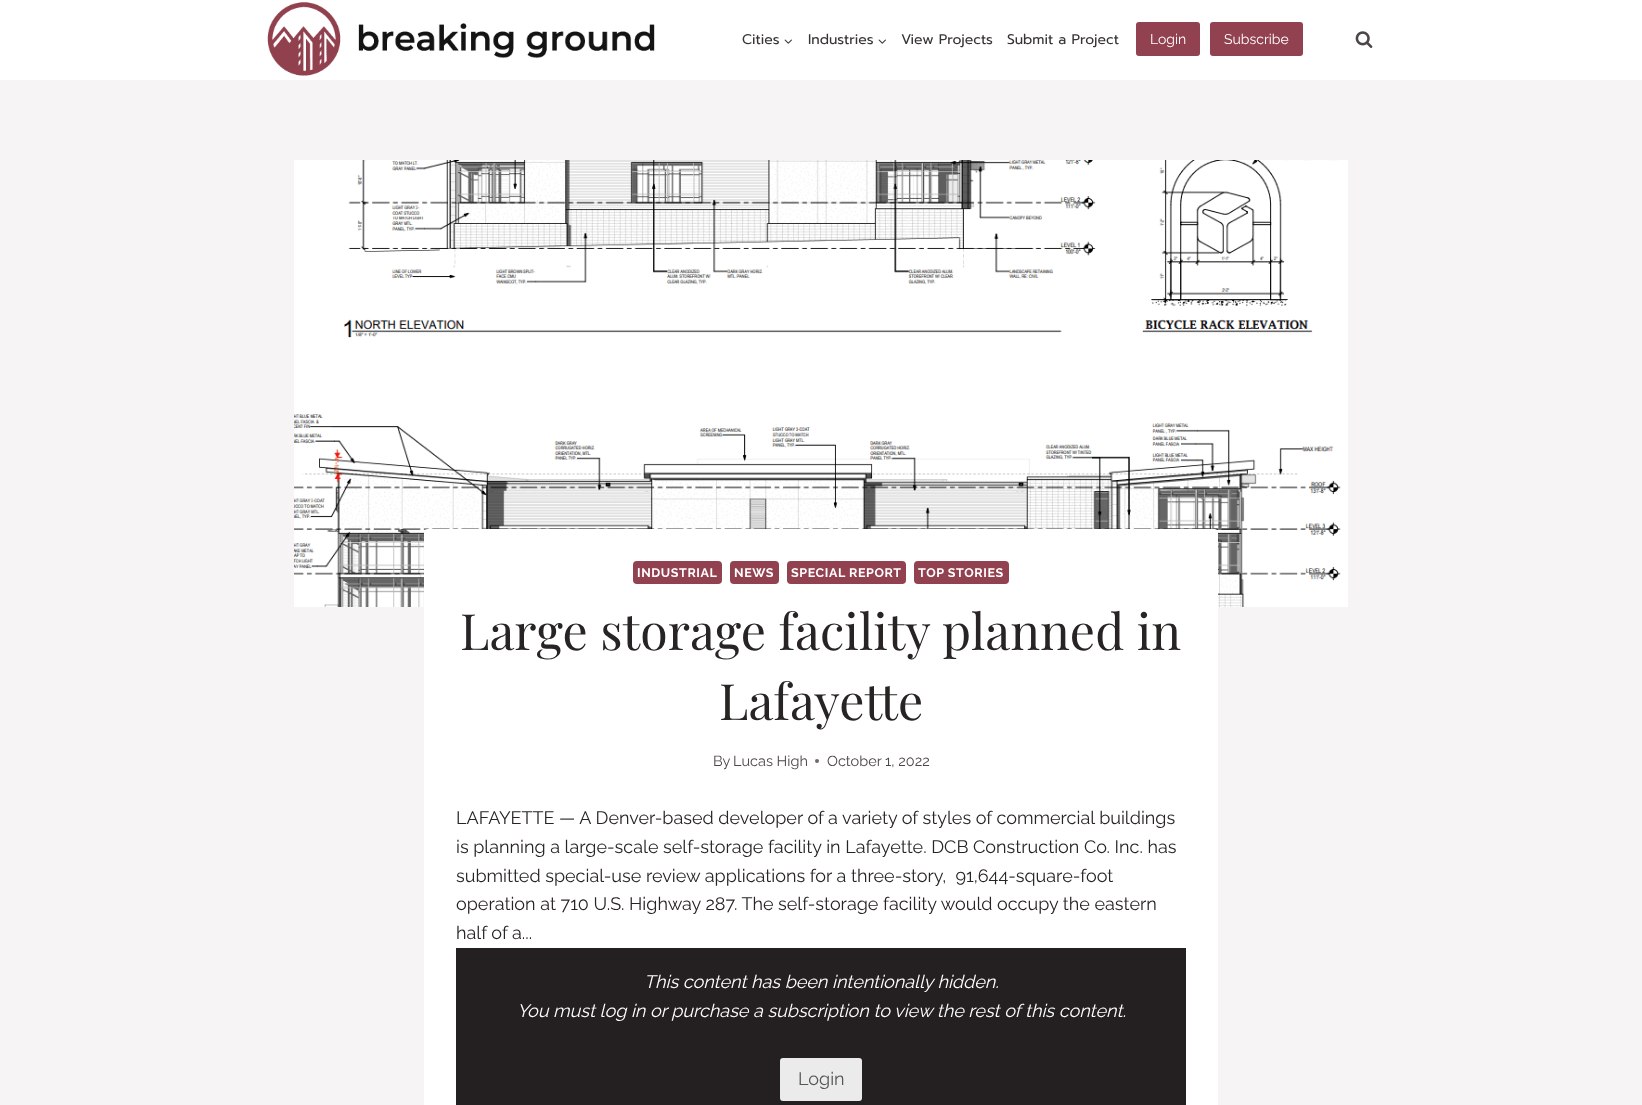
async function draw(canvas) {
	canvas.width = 1642;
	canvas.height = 1105;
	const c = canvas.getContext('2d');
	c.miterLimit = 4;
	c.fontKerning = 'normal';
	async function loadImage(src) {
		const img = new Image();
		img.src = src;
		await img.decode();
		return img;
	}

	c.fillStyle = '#f6f4f5';
	c.fillRect(0, 0, 1642, 1105);
	c.fillStyle = '#fff';
	c.fillRect(0, 0, 1642, 80);
	c.drawImage(await loadImage('img1.png'), 267, 2, 388, 74);
	c.font = '14px Prompt';
	c.fillStyle = '#383534';
	c.fillText('Cities', 742, 44);
	c.drawImage(await loadImage('img2.png'), 784, 39, 8, 5);
	c.fillText('Industries', 808, 44);
	c.drawImage(await loadImage('img2.png'), 878, 39, 8, 5);
	c.fillText('View Projects', 901, 44);
	c.fillText('Submit a Project', 1007, 44);
	c.fillStyle = '#91414f';
	c.beginPath();
	c.roundRect(1136, 22, 64, 34, 3);
	c.fill();
	c.font = '14px Raleway';
	c.fillStyle = '#fff';
	c.fillText('Login', 1150, 44);
	c.fillStyle = '#91414f';
	c.beginPath();
	c.roundRect(1210, 22, 93, 34, 3);
	c.fill();
	c.fillStyle = '#fff';
	c.fillText('Subscribe', 1224, 44);
	c.drawImage(await loadImage('img3.png'), 1355, 31, 18, 17);
	c.drawImage(await loadImage('img4.png'), 294, 160, 1054, 447);
	c.beginPath();
	c.roundRect(424, 529, 794, 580, 4);
	c.fill();
	c.fillStyle = '#91414f';
	c.beginPath();
	c.roundRect(633, 561, 89, 23, 4);
	c.fill();
	c.letterSpacing = '0.6px';
	c.font = 'bold 12.5px Raleway';
	c.fillStyle = '#fff';
	c.fillText('INDUSTRIAL', 637, 577);
	c.fillStyle = '#91414f';
	c.beginPath();
	c.roundRect(730, 561, 49, 23, 4);
	c.fill();
	c.fillStyle = '#fff';
	c.fillText('NEWS', 734, 577);
	c.fillStyle = '#91414f';
	c.beginPath();
	c.roundRect(787, 561, 119, 23, 4);
	c.fill();
	c.fillStyle = '#fff';
	c.fillText('SPECIAL REPORT', 791, 577);
	c.fillStyle = '#91414f';
	c.beginPath();
	c.roundRect(914, 561, 95, 23, 4);
	c.fill();
	c.fillStyle = '#fff';
	c.fillText('TOP STORIES', 918, 577);
	c.letterSpacing = '0px';
	c.font = '50px Playfair Display';
	c.fillStyle = '#292424';
	c.fillText('Large storage facility planned in', 460, 650);
	c.fillText('Lafayette', 719, 720);
	c.font = '14.5px Raleway';
	c.fillStyle = '#4c4645';
	c.fillText('By', 713, 766);
	c.fillText('Lucas High', 733, 766);
	c.fillStyle = '#706b6a';
	c.beginPath();
	c.arc(817, 761, 2, 0, 2 * Math.PI);
	c.fill();
	c.fillStyle = '#4c4645';
	c.fillText('October 1, 2022', 827, 766);
	c.font = '18px Raleway';
	c.fillStyle = '#292424';
	for (const [text, x, y] of [
		['LAFAYETTE — A Denver-based developer of a variety of styles of commercial buildings', 456, 824],
		['is planning a large-scale self-storage facility in Lafayette. DCB Construction Co. Inc. has', 456, 853],
		['submitted special-use review applications for a three-story,  91,644-square-foot', 456, 882],
		['operation at 710 U.S. Highway 287. The self-storage facility would occupy the eastern', 456, 910],
		['half of a...', 456, 939],
	]) {
		c.fillText(text, x, y);
	}
	c.fillStyle = '#241f21';
	c.fillRect(456, 948, 730, 157);
	c.font = 'italic 18px Raleway';
	c.fillStyle = '#fff';
	c.fillText('This content has been intentionally hidden.', 644, 988);
	c.fillText('You must log in or purchase a subscription to view the rest of this content.', 517, 1017);
	c.fillStyle = '#ebebeb';
	c.beginPath();
	c.roundRect(780, 1058, 82, 43, 3);
	c.fill();
	c.font = '18px Raleway';
	c.fillStyle = '#555';
	c.fillText('Login', 798, 1085);
}

draw(document.querySelector('canvas'));
